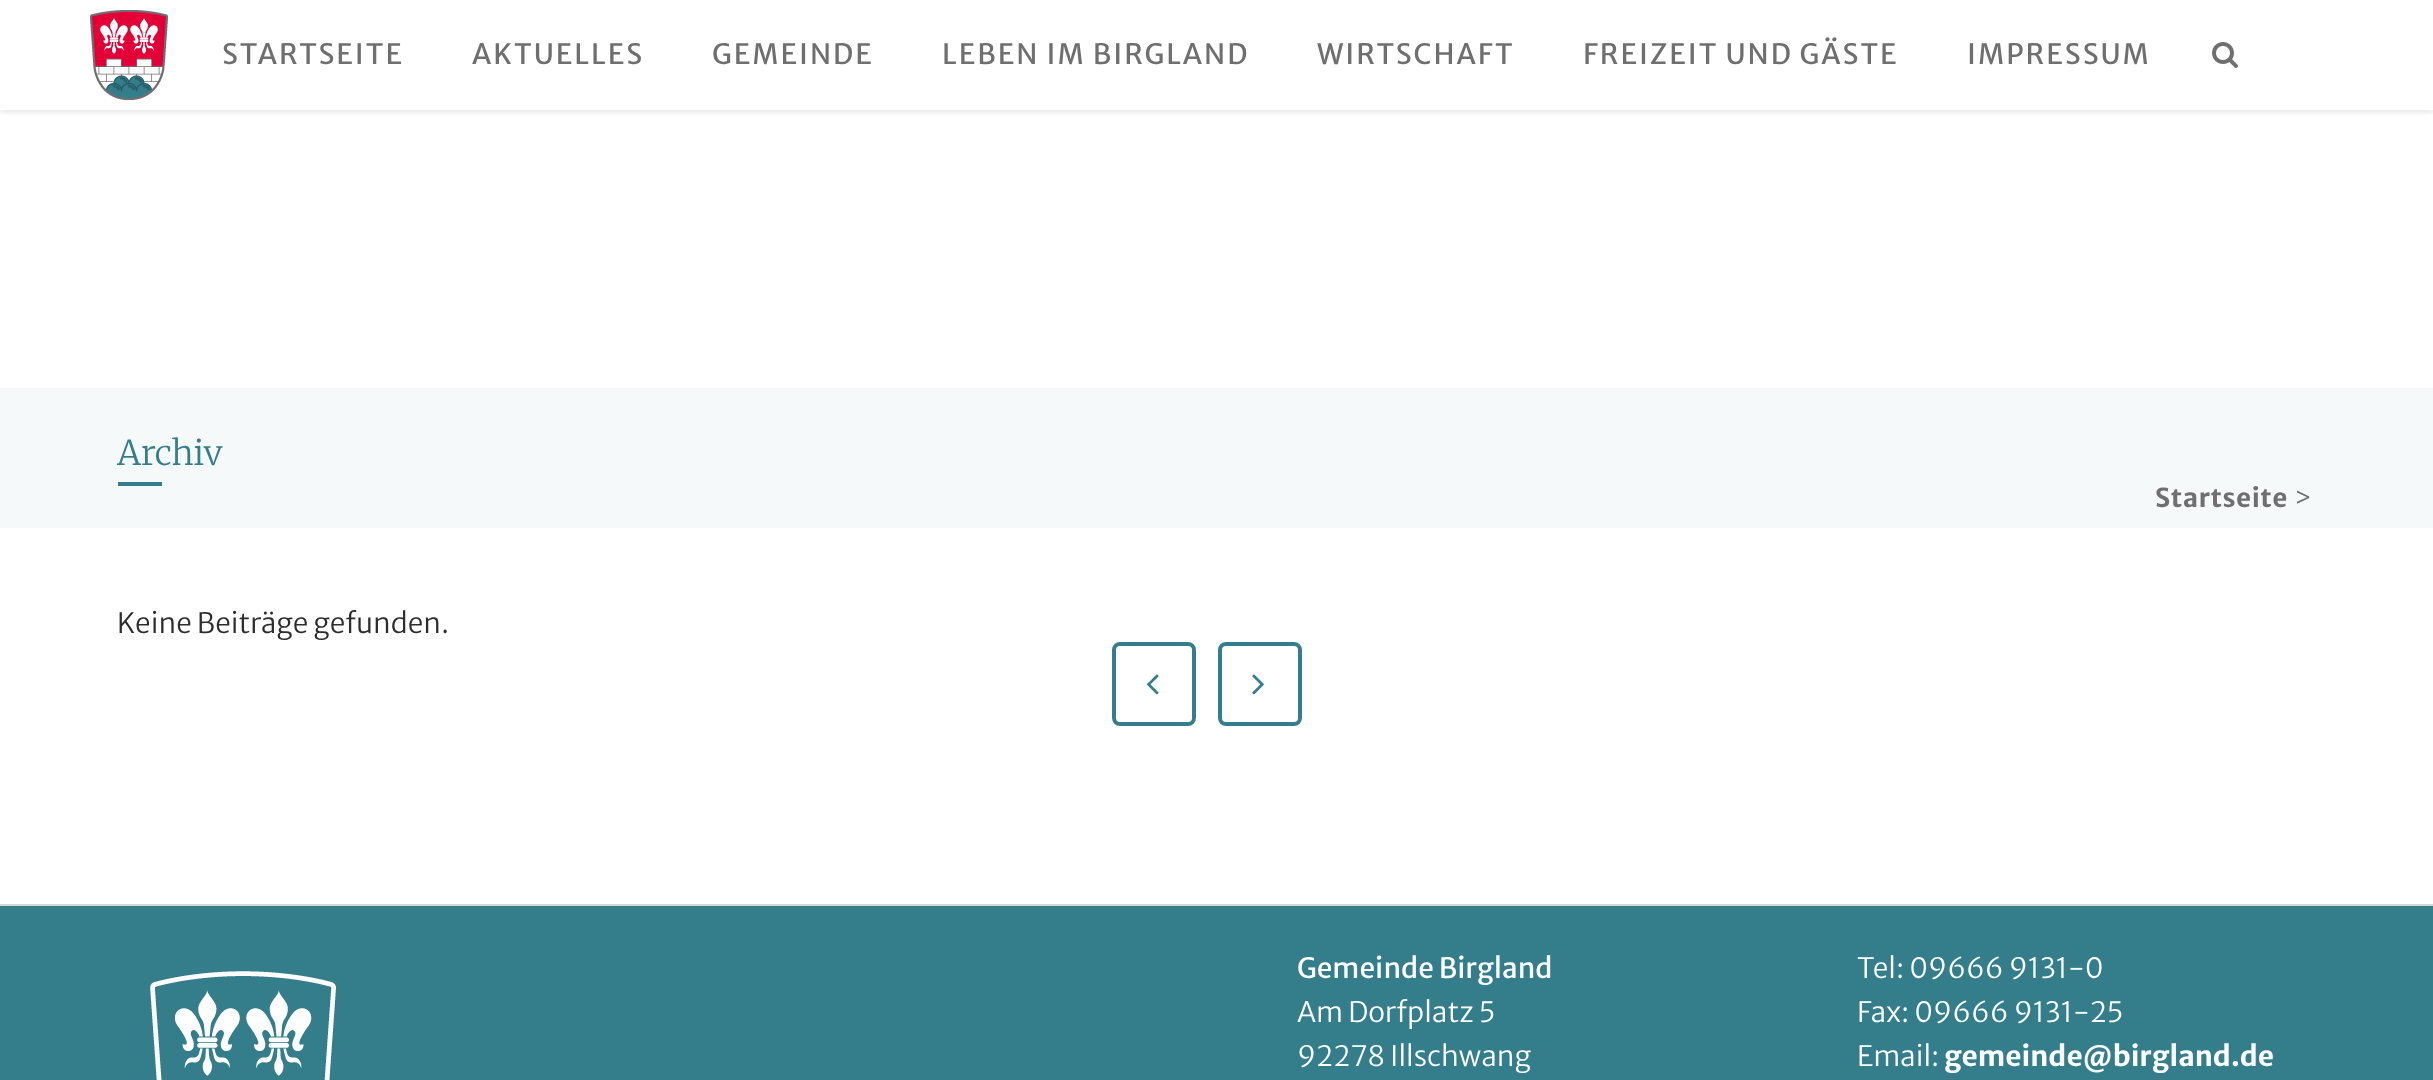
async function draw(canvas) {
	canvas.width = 2433;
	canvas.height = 1080;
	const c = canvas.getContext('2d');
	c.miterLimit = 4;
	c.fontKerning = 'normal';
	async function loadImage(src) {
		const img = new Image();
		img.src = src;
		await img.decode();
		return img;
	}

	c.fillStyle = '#fff';
	c.fillRect(0, 0, 2433, 1080);
	c.save();
	c.beginPath();
	c.rect(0, 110, 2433, 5);
	c.clip();
	c.fillStyle = '#0000001c';
	c.filter = 'blur(3px)';
	c.beginPath();
	c.rect(0, 2, 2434, 110);
	c.fill();
	c.filter = 'none';
	c.restore();
	c.drawImage(await loadImage('img1.png'), 90, 10, 78, 90);
	c.letterSpacing = '2px';
	c.font = '28px Merriweather Sans';
	c.fillStyle = '#6f6f6f';
	for (const [text, x, y] of [
		['STARTSEITE', 222, 64],
		['AKTUELLES', 472, 64],
		['GEMEINDE', 712, 64],
		['LEBEN IM BIRGLAND', 942, 64],
		['WIRTSCHAFT', 1317, 64],
		['FREIZEIT UND GÄSTE', 1583, 64],
		['IMPRESSUM', 1967, 64],
	]) {
		c.fillText(text, x, y);
	}
	c.drawImage(await loadImage('img2.png'), 2212, 42, 26, 26);
	c.fillStyle = '#f5f9fa';
	c.fillRect(0, 388, 2433, 140);
	c.letterSpacing = '0px';
	c.font = '300 34px Merriweather';
	c.fillStyle = '#347e8c';
	c.fillText('Archiv', 117, 465);
	c.fillRect(118, 482, 44, 4);
	c.letterSpacing = '0.5px';
	c.font = 'bold 26px Merriweather Sans';
	c.fillStyle = '#6f6f6f';
	c.fillText('Startseite', 2155, 507);
	c.font = '300 26px Merriweather Sans';
	c.fillText('>', 2294, 507);
	c.letterSpacing = '0px';
	c.font = '300 28px Merriweather Sans';
	c.fillStyle = '#2d2d2d';
	c.fillText('Keine Beiträge gefunden.', 117, 633);
	c.beginPath();
	c.roundRect(1114, 644, 80, 80, 6);
	c.strokeStyle = '#347e8c';
	c.lineWidth = 4;
	c.stroke();
	c.drawImage(await loadImage('img3.png'), 1146, 674, 13, 21);
	c.beginPath();
	c.roundRect(1220, 644, 80, 80, 6);
	c.stroke();
	c.drawImage(await loadImage('img4.png'), 1252, 674, 12, 21);
	c.fillStyle = '#347e8c';
	c.fillRect(0, 906, 2433, 174);
	c.fillStyle = '#d8d8d8';
	c.fillRect(0, 904, 2433, 2);
	c.drawImage(await loadImage('img5.png'), 150, 971, 186, 109);
	c.font = '28px Merriweather Sans';
	c.fillStyle = '#fff';
	c.fillText('Gemeinde Birgland', 1297, 978);
	c.font = '300 28px Merriweather Sans';
	for (const [text, x, y] of [
		['Am Dorfplatz 5', 1297, 1022],
		['92278 Illschwang', 1297, 1066],
		['Tel: 09666 9131-0', 1857, 978],
		['Fax: 09666 9131-25', 1857, 1022],
		['Email:', 1857, 1066],
	]) {
		c.fillText(text, x, y);
	}
	c.font = 'bold 28px Merriweather Sans';
	c.fillText('gemeinde@birgland.de', 1944, 1066);
}

draw(document.querySelector('canvas'));
